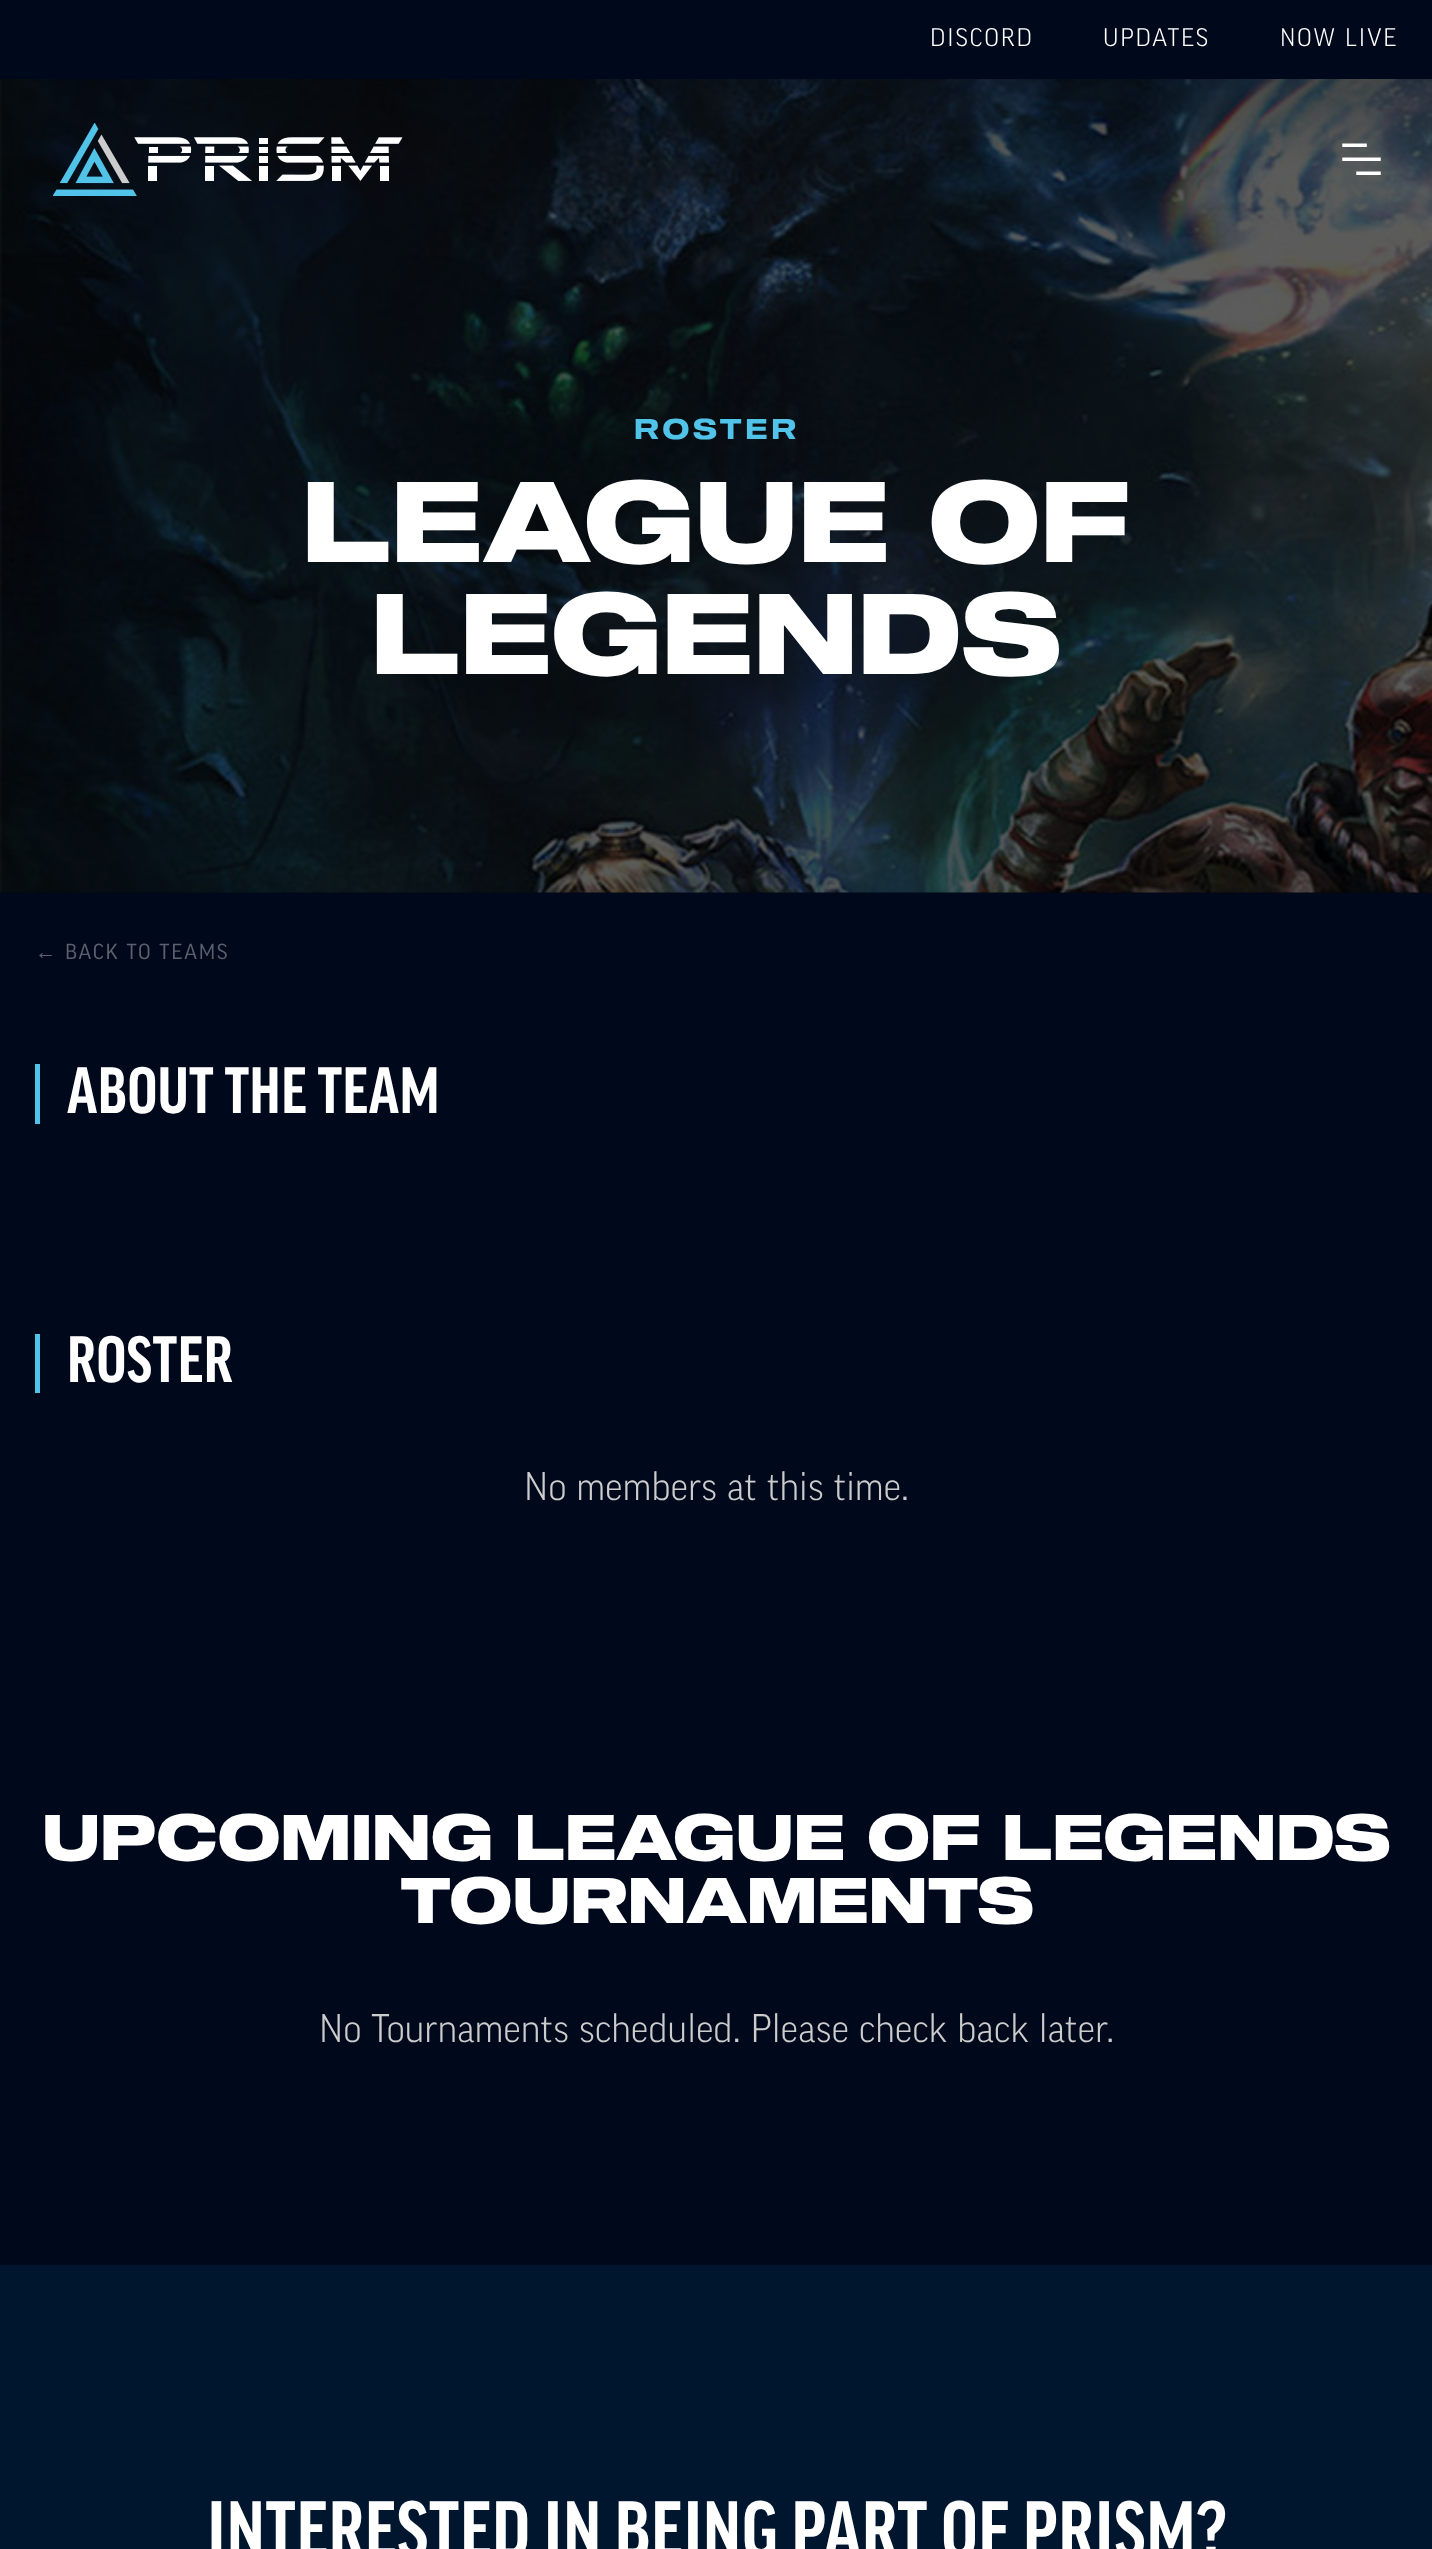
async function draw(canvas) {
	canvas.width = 1432;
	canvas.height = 2549;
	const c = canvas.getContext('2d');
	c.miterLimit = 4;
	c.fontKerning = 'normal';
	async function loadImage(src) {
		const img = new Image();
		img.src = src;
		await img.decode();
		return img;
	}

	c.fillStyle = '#00091b';
	c.fillRect(0, 0, 1432, 2549);
	c.letterSpacing = '1.75px';
	c.font = '300 24.5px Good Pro';
	c.fillStyle = '#fff';
	for (const [text, x, y] of [
		['DISCORD', 930, 46],
		['UPDATES', 1103, 46],
		['NOW LIVE', 1280, 46],
	]) {
		c.fillText(text, x, y);
	}
	c.fillStyle = '#000811';
	c.fillRect(0, 892, 1432, 1);
	c.drawImage(await loadImage('img3.png'), 0, 79, 1432, 814);
	c.drawImage(await loadImage('img1.png'), 53, 123, 350, 73);
	c.drawImage(await loadImage('img2.png'), 1342, 143, 39, 32);
	c.letterSpacing = '3.5px';
	c.font = '300 28px "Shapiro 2"';
	c.fillStyle = '#51c3e8';
	c.fillText('ROSTER', 634, 439);
	c.letterSpacing = '0px';
	c.font = '300 112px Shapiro';
	c.fillStyle = '#fff';
	c.fillText('LEAGUE OF', 302, 562);
	c.fillText('LEGENDS', 371, 674);
	c.letterSpacing = '1.75px';
	c.font = '21px Liberation Sans';
	c.fillStyle = '#5c626d';
	c.fillText('←', 35, 959);
	c.font = '21px Good Pro';
	c.fillText('BACK TO TEAMS', 65, 959);
	c.fillStyle = '#51c3e8';
	c.fillRect(35, 1064, 5, 60);
	c.letterSpacing = '0.5px';
	c.font = 'bold 63px Good Pro';
	c.fillStyle = '#fff';
	c.fillText('ABOUT THE TEAM', 67, 1113);
	c.fillStyle = '#51c3e8';
	c.fillRect(35, 1334, 5, 59);
	c.fillStyle = '#fff';
	c.fillText('ROSTER', 67, 1382);
	c.letterSpacing = '0px';
	c.font = '300 38.5px Good Pro';
	c.fillStyle = '#ccc';
	c.fillText('No members at this time.', 524, 1500);
	c.font = '300 63px Shapiro';
	c.fillStyle = '#fff';
	c.fillText('UPCOMING LEAGUE OF LEGENDS', 42, 1860);
	c.fillText('TOURNAMENTS', 400, 1923);
	c.font = '300 38.5px Good Pro';
	c.fillStyle = '#ccc';
	c.fillText('No Tournaments scheduled. Please check back later.', 319, 2042);
	c.fillStyle = '#00162e';
	c.fillRect(0, 2265, 1432, 284);
	c.letterSpacing = '0.9px';
	c.font = 'bold 77px Good Pro';
	c.fillStyle = '#fff';
	c.fillText('INTERESTED IN BEING PART OF PRISM?', 207, 2557);
}

draw(document.querySelector('canvas'));
